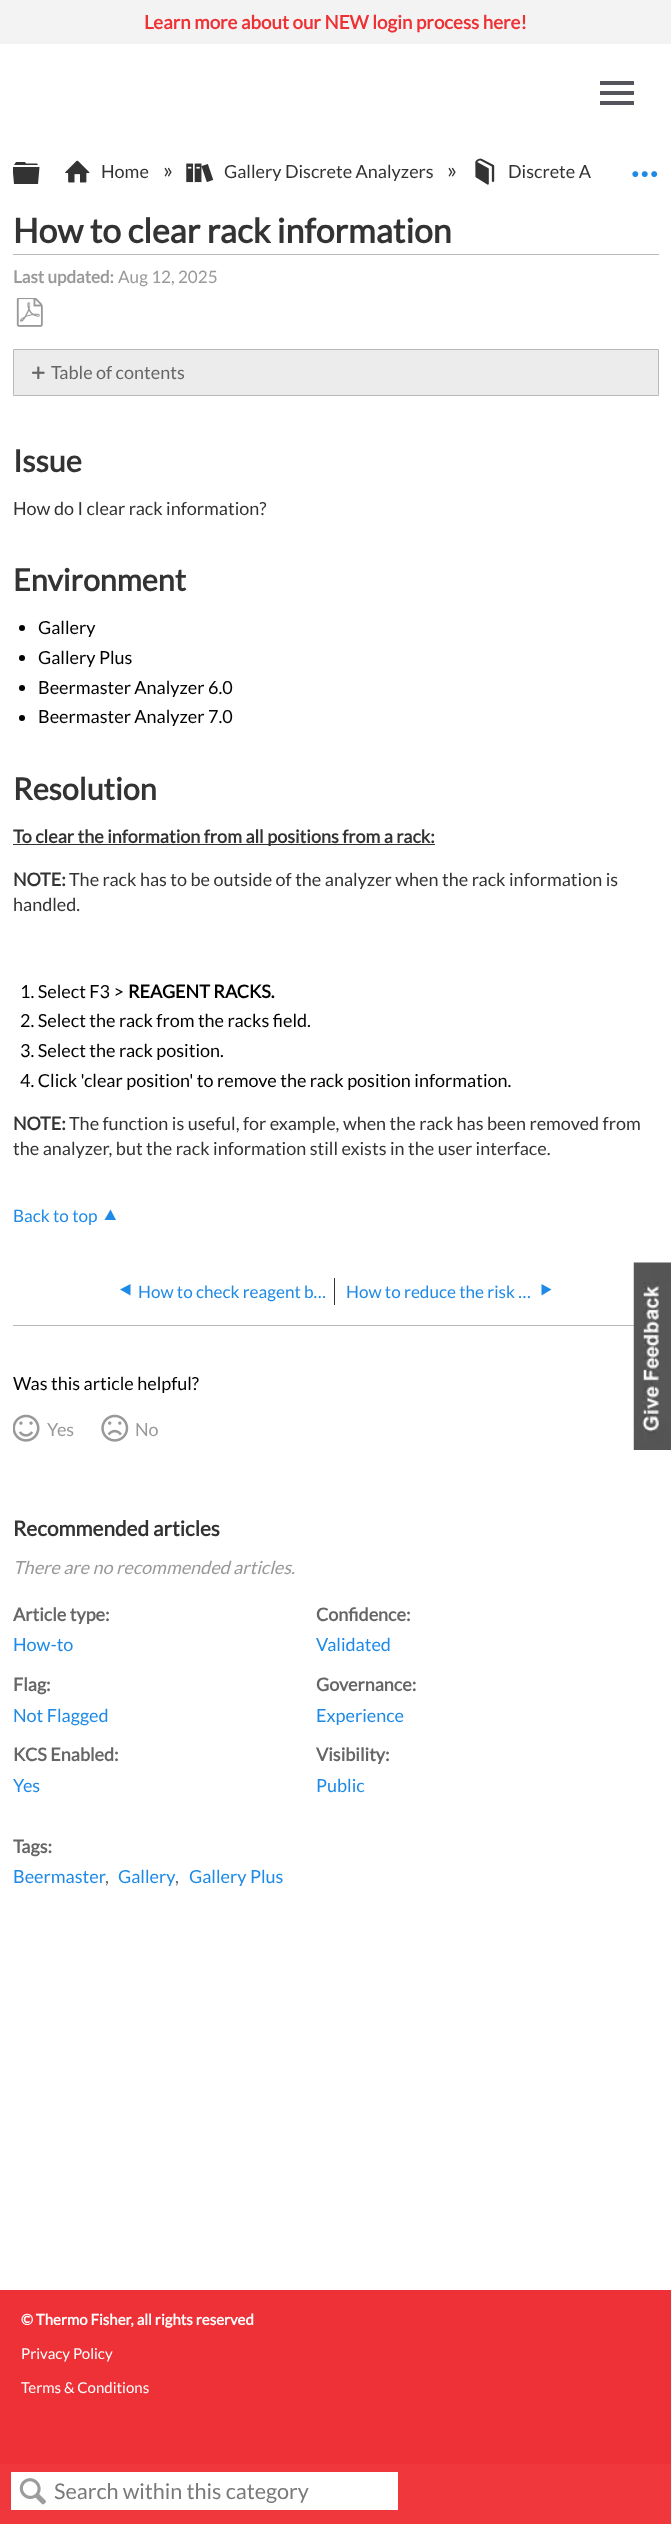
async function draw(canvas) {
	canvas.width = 671;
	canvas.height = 2524;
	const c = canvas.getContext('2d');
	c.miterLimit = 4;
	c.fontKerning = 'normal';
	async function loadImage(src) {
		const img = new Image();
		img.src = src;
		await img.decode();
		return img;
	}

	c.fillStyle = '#fff';
	c.fillRect(0, 0, 671, 2524);
	c.fillStyle = '#ef373c';
	c.fillRect(0, 2464, 671, 60);
	c.fillStyle = '#f3f3f3';
	c.fillRect(0, 0, 671, 44);
	c.font = 'bold 18.75px Lato';
	c.fillStyle = '#ee3134';
	c.fillText('Learn more about our NEW login process here!', 144, 29);
	for (const [x, y, w, h, color] of [
		[600, 81, 34, 4, '#54545c'],
		[600, 91, 34, 4, '#54545c'],
		[600, 101, 34, 4, '#54545c'],
	]) {
		c.fillStyle = color;
		c.fillRect(x, y, w, h);
	}
	c.save();
	c.beginPath();
	c.rect(13, 150, 32, 40);
	c.clip();
	c.fillStyle = '#333';
	c.beginPath();
	c.moveTo(12.5, 167);
	c.lineTo(39.5, 167);
	c.lineTo(38, 184);
	c.lineTo(14, 184);
	c.closePath();
	c.moveTo(37, 163.5);
	c.lineTo(38, 165);
	c.lineTo(14, 165);
	c.lineTo(16, 162);
	c.lineTo(25, 162);
	c.lineTo(26, 163.5);
	c.closePath();
	c.fill();
	c.restore();
	c.drawImage(await loadImage('img1.png'), 65, 160, 25, 23);
	c.font = '18px Lato';
	c.fillStyle = '#333';
	c.fillText('Home', 101, 178);
	c.font = '22px Lato';
	c.fillText('»', 163, 178);
	c.drawImage(await loadImage('img2.png'), 186, 163, 28, 20);
	c.font = '18px Lato';
	c.fillText('Gallery Discrete Analyzers', 224, 178);
	c.font = '22px Lato';
	c.fillText('»', 447, 178);
	c.drawImage(await loadImage('img3.png'), 475, 158, 20, 27);
	c.font = '18px Lato';
	c.fillText('Discrete A', 508, 178);
	c.drawImage(await loadImage('img4.png'), 632, 171, 26, 7);
	c.fillStyle = '#fff';
	c.fillRect(11, 2472, 387, 38);
	c.drawImage(await loadImage('img5.png'), 19, 2478, 27, 27);
	c.font = '21.6px Lato';
	c.fillStyle = '#797979';
	c.fillText('Search within this category', 54, 2499);
	c.fillStyle = '#bbb8b8';
	c.fillRect(13, 254, 646, 1);
	c.font = 'bold 33.75px Lato';
	c.fillStyle = '#333';
	c.fillText('How to clear rack information', 13, 243);
	c.font = 'bold 17.1px Lato';
	c.fillStyle = '#999';
	c.fillText('Last updated:', 13, 283);
	c.font = '17.1px Lato';
	c.fillText('Aug 12, 2025', 118, 283);
	c.drawImage(await loadImage('img6.png'), 16, 298, 27, 29);
	c.fillStyle = '#edecec';
	c.beginPath();
	c.rect(13.5, 349.5, 645, 46);
	c.fill();
	c.strokeStyle = '#bbb8b8';
	c.stroke();
	c.drawImage(await loadImage('img7.png'), 32, 366, 13, 13);
	c.font = '18px Lato';
	c.fillStyle = '#666';
	c.fillText('Table of contents', 51, 379);
	c.font = 'bold 30.5px Lato';
	c.fillStyle = '#333';
	c.fillText('Issue', 13, 472);
	c.font = '18px Lato';
	c.fillText('How do I clear rack information?', 13, 515);
	c.font = 'bold 30.5px Lato';
	c.fillText('Environment', 13, 591);
	c.fillStyle = '#000';
	c.beginPath();
	c.arc(22, 628, 3, 0, 2 * Math.PI);
	c.fill();
	c.font = '18px Lato';
	c.fillText('Gallery', 38, 634);
	c.beginPath();
	c.arc(22, 658, 3, 0, 2 * Math.PI);
	c.fill();
	c.fillText('Gallery Plus', 38, 664);
	c.beginPath();
	c.arc(22, 688, 3, 0, 2 * Math.PI);
	c.fill();
	c.fillText('Beermaster Analyzer 6.0', 38, 694);
	c.beginPath();
	c.arc(22, 718, 3, 0, 2 * Math.PI);
	c.fill();
	c.fillText('Beermaster Analyzer 7.0', 38, 723);
	c.font = 'bold 30.5px Lato';
	c.fillStyle = '#333';
	c.fillText('Resolution', 13, 800);
	c.fillRect(13, 844, 422, 1);
	c.font = 'bold 18px Lato';
	c.fillText('To clear the information from all positions from a rack:', 13, 843);
	c.fillText('NOTE:', 13, 886);
	c.font = '18px Lato';
	c.fillText('The rack has to be outside of the analyzer when the rack information is', 69, 886);
	c.fillText('handled.', 13, 911);
	c.fillStyle = '#000';
	c.fillText('1. Select F3 >', 20, 998);
	c.font = 'bold 18px Lato';
	c.fillText('REAGENT RACKS.', 128, 998);
	c.font = '18px Lato';
	for (const [text, x, y] of [
		['2. Select the rack from the racks field.', 20, 1027],
		['3. Select the rack position.', 20, 1057],
		['4. Click \'clear position\' to remove the rack position information.', 20, 1087],
	]) {
		c.fillText(text, x, y);
	}
	c.font = 'bold 18px Lato';
	c.fillStyle = '#333';
	c.fillText('NOTE:', 13, 1130);
	c.font = '18px Lato';
	c.fillText('The function is useful, for example, when the rack has been removed from', 69, 1130);
	c.fillText('the analyzer, but the rack information still exists in the user interface.', 13, 1155);
	c.fillStyle = '#bbb8b8';
	c.fillRect(13, 1325, 621, 1);
	c.font = '17.1px Lato';
	c.fillStyle = '#1e8ae7';
	c.fillText('Back to top', 13, 1222);
	c.beginPath();
	c.moveTo(104.5, 1220);
	c.lineTo(116, 1220);
	c.lineTo(110.5, 1209.5);
	c.closePath();
	c.fill();
	c.fillStyle = '#333';
	c.fillRect(334, 1278, 1, 27);
	c.fillStyle = '#1e8ae7';
	c.beginPath();
	c.moveTo(130.5, 1284);
	c.lineTo(130.5, 1295.5);
	c.lineTo(120, 1289.5);
	c.closePath();
	c.fill();
	c.fillText('How to check reagent b…', 138, 1298);
	c.fillText('How to reduce the risk …', 346, 1298);
	c.beginPath();
	c.moveTo(541.5, 1284);
	c.lineTo(541.5, 1295.5);
	c.lineTo(551.5, 1289.5);
	c.closePath();
	c.fill();
	c.font = '18px Lato';
	c.fillStyle = '#000';
	c.fillText('Was this article helpful?', 13, 1390);
	c.drawImage(await loadImage('img8.png'), 13, 1414, 27, 28);
	c.fillStyle = '#999';
	c.fillText('Yes', 47, 1436);
	c.drawImage(await loadImage('img9.png'), 101, 1414, 28, 28);
	c.fillText('No', 135, 1436);
	c.font = 'bold 20.75px Lato';
	c.fillStyle = '#333';
	c.fillText('Recommended articles', 13, 1536);
	c.font = 'italic 18px Lato';
	c.fillStyle = '#999';
	c.fillText('There are no recommended articles.', 13, 1574);
	c.font = 'bold 18px Lato';
	c.fillStyle = '#666';
	c.fillText('Article type:', 13, 1621);
	c.font = '18px Lato';
	c.fillStyle = '#1e8ae7';
	c.fillText('How-to', 13, 1651);
	c.font = 'bold 18px Lato';
	c.fillStyle = '#666';
	c.fillText('Confidence:', 316, 1621);
	c.font = '18px Lato';
	c.fillStyle = '#1e8ae7';
	c.fillText('Validated', 316, 1651);
	c.font = 'bold 18px Lato';
	c.fillStyle = '#666';
	c.fillText('Flag:', 13, 1691);
	c.font = '18px Lato';
	c.fillStyle = '#1e8ae7';
	c.fillText('Not Flagged', 13, 1722);
	c.font = 'bold 18px Lato';
	c.fillStyle = '#666';
	c.fillText('Governance:', 316, 1691);
	c.font = '18px Lato';
	c.fillStyle = '#1e8ae7';
	c.fillText('Experience', 316, 1722);
	c.font = 'bold 18px Lato';
	c.fillStyle = '#666';
	c.fillText('KCS Enabled:', 13, 1761);
	c.font = '18px Lato';
	c.fillStyle = '#1e8ae7';
	c.fillText('Yes', 13, 1792);
	c.font = 'bold 18px Lato';
	c.fillStyle = '#666';
	c.fillText('Visibility:', 316, 1761);
	c.font = '18px Lato';
	c.fillStyle = '#1e8ae7';
	c.fillText('Public', 316, 1792);
	c.font = 'bold 18px Lato';
	c.fillStyle = '#666';
	c.fillText('Tags:', 13, 1853);
	c.font = '18px Lato';
	c.fillStyle = '#1e8ae7';
	c.fillText('Beermaster', 13, 1883);
	c.fillStyle = '#666';
	c.fillText(',', 105, 1883);
	c.fillStyle = '#1e8ae7';
	c.fillText('Gallery', 118, 1883);
	c.fillStyle = '#666';
	c.fillText(',', 175, 1883);
	c.fillStyle = '#1e8ae7';
	c.fillText('Gallery Plus', 189, 1883);
	c.fillStyle = '#ee3136';
	c.fillRect(0, 2290, 671, 174);
	c.font = 'bold 15px Lato';
	c.fillStyle = '#fff';
	c.fillText('© Thermo Fisher, all rights reserved', 21, 2325);
	c.font = '15px Lato';
	c.fillText('Privacy Policy', 21, 2359);
	c.fillText('Terms & Conditions', 21, 2393);
	c.drawImage(await loadImage('img10.png'), 633, 1262, 38, 188);
}

draw(document.querySelector('canvas'));
